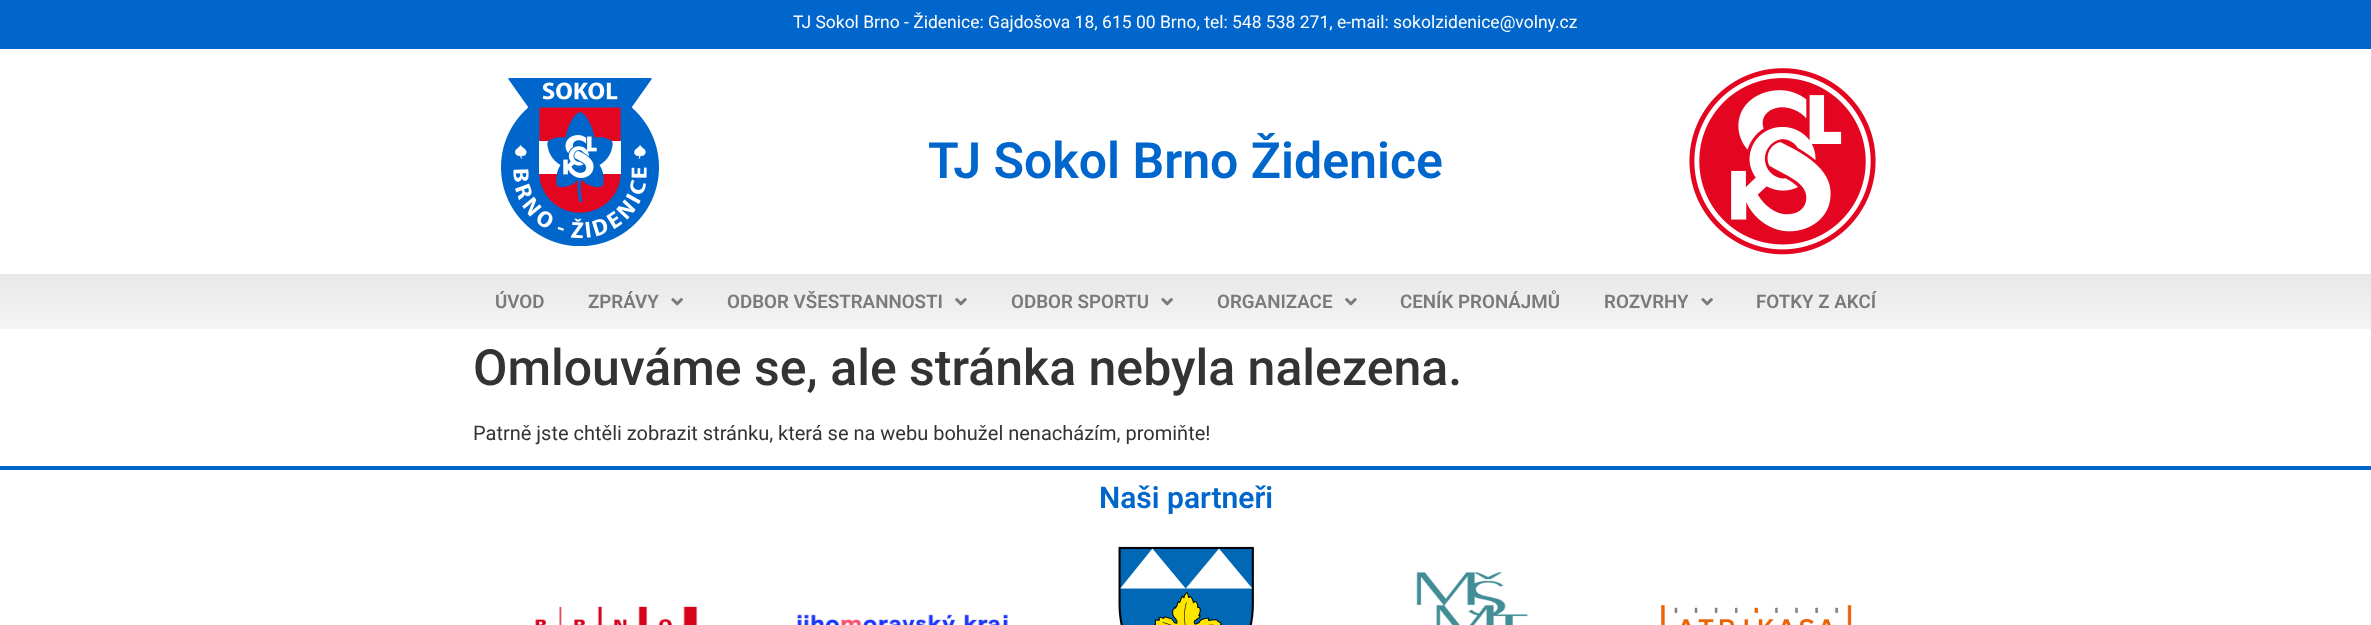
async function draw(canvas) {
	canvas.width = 2371;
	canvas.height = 625;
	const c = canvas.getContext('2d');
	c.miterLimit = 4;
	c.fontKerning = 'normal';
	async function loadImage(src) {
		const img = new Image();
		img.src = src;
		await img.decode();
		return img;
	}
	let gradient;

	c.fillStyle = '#fff';
	c.fillRect(0, 0, 2371, 625);
	c.fillStyle = '#06c';
	c.fillRect(0, 0, 2371, 49);
	c.font = '17.5px Roboto';
	c.fillStyle = '#fcfcfc';
	c.fillText('TJ Sokol Brno - Židenice: Gajdošova 18, 615 00 Brno, tel: 548 538 271, e-mail: sokolzidenice@volny.cz', 793, 28);
	c.drawImage(await loadImage('img1.png'), 501, 78, 158, 168);
	c.font = '600 50px Roboto';
	c.fillStyle = '#06c';
	c.fillText('TJ Sokol Brno Židenice', 928, 178);
	c.drawImage(await loadImage('img2.png'), 1689, 68, 187, 187);
	gradient = c.createLinearGradient(1186, 274, 1186, 329);
	gradient.addColorStop(0, '#e8e8e8');
	gradient.addColorStop(1, '#f4f4f4');
	c.fillStyle = gradient;
	c.fillRect(0, 274, 2371, 55);
	c.font = '600 18.75px Roboto';
	c.fillStyle = '#7a7a7a';
	c.fillText('ÚVOD', 495, 308);
	c.fillText('ZPRÁVY', 588, 308);
	c.drawImage(await loadImage('img3.png'), 671, 298, 12, 8);
	c.fillText('ODBOR VŠESTRANNOSTI', 727, 308);
	c.drawImage(await loadImage('img4.png'), 955, 298, 12, 8);
	c.fillText('ODBOR SPORTU', 1011, 308);
	c.drawImage(await loadImage('img3.png'), 1161, 298, 12, 8);
	c.fillText('ORGANIZACE', 1217, 308);
	c.drawImage(await loadImage('img4.png'), 1345, 298, 12, 8);
	c.fillText('CENÍK PRONÁJMŮ', 1400, 308);
	c.fillText('ROZVRHY', 1604, 308);
	c.drawImage(await loadImage('img3.png'), 1701, 298, 12, 8);
	c.fillText('FOTKY Z AKCÍ', 1756, 308);
	c.font = '500 50px Roboto';
	c.fillStyle = '#333';
	c.fillText('Omlouváme se, ale stránka nebyla nalezena.', 473, 385);
	c.font = '20px Roboto';
	c.fillText('Patrně jste chtěli zobrazit stránku, která se na webu bohužel nenacházím, promiňte!', 473, 440);
	c.fillStyle = '#06c';
	c.fillRect(0, 466, 2371, 4);
	c.font = '600 30px Roboto';
	c.fillText('Naši partneři', 1099, 508);
	c.drawImage(await loadImage('img5.png'), 535, 606, 163, 19);
	c.drawImage(await loadImage('img6.png'), 796, 613, 213, 12);
	c.drawImage(await loadImage('img7.png'), 1118, 546, 136, 79);
	c.drawImage(await loadImage('img8.png'), 1416, 571, 112, 54);
	c.drawImage(await loadImage('img9.png'), 1661, 605, 191, 20);
}

draw(document.querySelector('canvas'));
